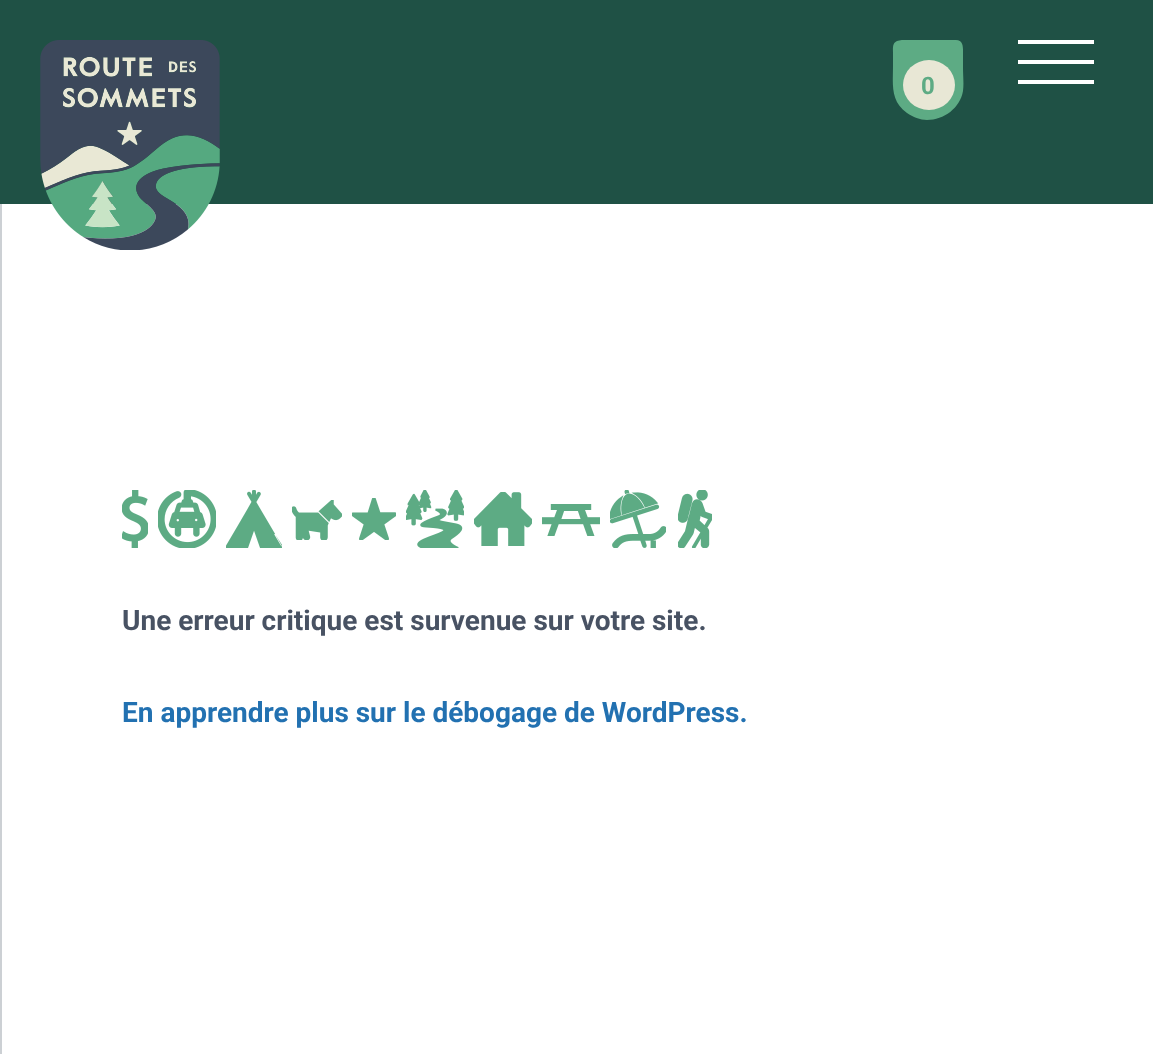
async function draw(canvas) {
	canvas.width = 1153;
	canvas.height = 1054;
	const c = canvas.getContext('2d');
	c.miterLimit = 4;
	c.fontKerning = 'normal';
	async function loadImage(src) {
		const img = new Image();
		img.src = src;
		await img.decode();
		return img;
	}

	c.fillStyle = '#fff';
	c.fillRect(0, 0, 1153, 1054);
	c.strokeStyle = '#ccd0d4';
	c.lineWidth = 2;
	c.strokeRect(1, 101, 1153, 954);
	c.fillStyle = '#1f5145';
	c.fillRect(0, 0, 1153, 204);
	c.drawImage(await loadImage('img1.png'), 40, 40, 180, 210);
	c.save();
	c.beginPath();
	c.rect(888, 40, 80, 80);
	c.clip();
	c.fillStyle = '#5dab84';
	c.beginPath();
	c.moveTo(956, 40);
	c.lineTo(919, 40);
	c.bezierCurveTo(914, 40, 902, 39, 897, 41);
	c.bezierCurveTo(892, 43, 893, 49, 893, 54);
	c.lineTo(893, 66);
	c.bezierCurveTo(893, 84, 890, 101, 907, 113);
	c.bezierCurveTo(913, 117, 920, 120, 927, 120);
	c.bezierCurveTo(944, 120, 960, 108, 963, 91);
	c.bezierCurveTo(964, 84, 963, 75, 963, 68);
	c.lineTo(963, 54);
	c.bezierCurveTo(963, 49, 964, 40, 956, 40);
	c.fill();
	c.restore();
	c.fillStyle = '#e8e7d5';
	c.beginPath();
	c.ellipse(929, 85, 26, 25, 0, 0, 2 * Math.PI);
	c.fill();
	c.font = 'bold 24px Roboto';
	c.fillStyle = '#5dab84';
	c.fillText('0', 921, 94);
	for (const [x, y, w, h, color] of [
		[1018, 40, 76, 4, '#fff'],
		[1018, 60, 76, 4, '#fff'],
		[1018, 80, 76, 4, '#fff'],
	]) {
		c.fillStyle = color;
		c.fillRect(x, y, w, h);
	}
	c.drawImage(await loadImage('img2.png'), 122, 490, 26, 58);
	c.drawImage(await loadImage('img3.png'), 158, 490, 58, 58);
	c.drawImage(await loadImage('img4.png'), 226, 490, 56, 58);
	c.drawImage(await loadImage('img5.png'), 292, 500, 50, 40);
	c.drawImage(await loadImage('img6.png'), 352, 498, 44, 42);
	c.drawImage(await loadImage('img7.png'), 406, 490, 58, 58);
	c.drawImage(await loadImage('img8.png'), 474, 492, 58, 54);
	c.drawImage(await loadImage('img9.png'), 542, 504, 58, 32);
	c.drawImage(await loadImage('img10.png'), 610, 490, 56, 58);
	c.drawImage(await loadImage('img11.png'), 678, 490, 34, 58);
	c.font = 'bold 28px Roboto';
	c.fillStyle = '#485263';
	c.fillText('Une erreur critique est survenue sur votre site.', 122, 630);
	c.fillStyle = '#2271b1';
	c.fillText('En apprendre plus sur le débogage de WordPress.', 122, 722);
}

draw(document.querySelector('canvas'));
